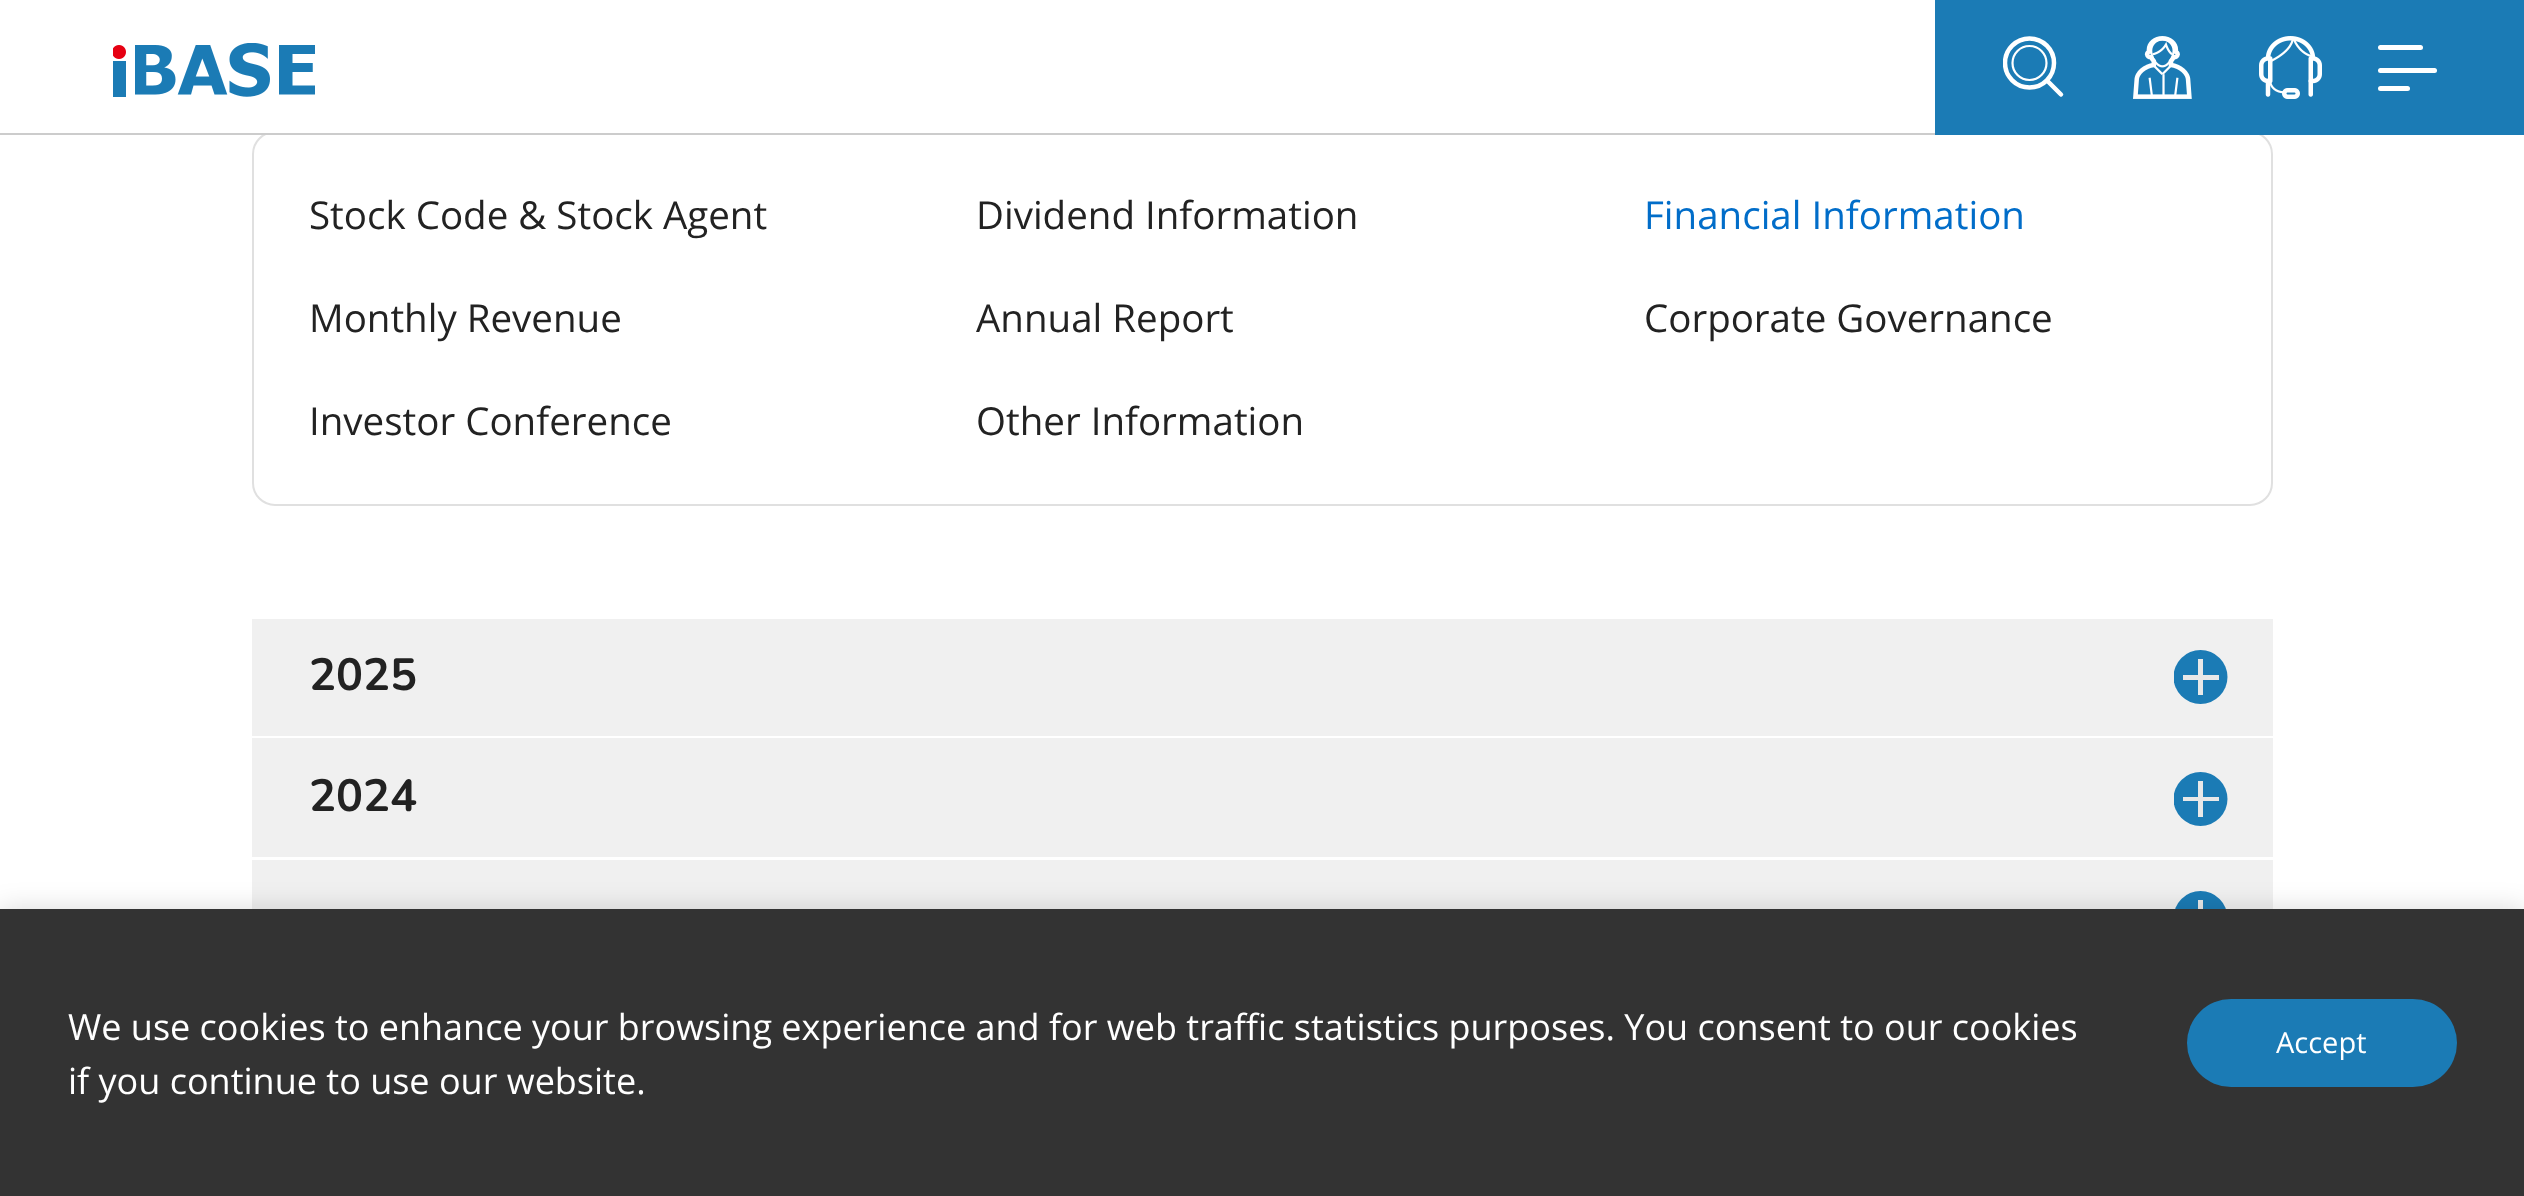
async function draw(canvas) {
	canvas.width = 2524;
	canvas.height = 1196;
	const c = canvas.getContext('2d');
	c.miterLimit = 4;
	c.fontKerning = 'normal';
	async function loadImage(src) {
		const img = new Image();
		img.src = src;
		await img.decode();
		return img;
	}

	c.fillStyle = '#fff';
	c.fillRect(0, 0, 2524, 1196);
	c.beginPath();
	c.roundRect(253, 132, 2019, 373, 22);
	c.strokeStyle = '#e0e0e0';
	c.lineWidth = 2;
	c.stroke();
	c.fillRect(266, 131, 1669, 2);
	c.fillStyle = '#1b7bb5';
	c.fillRect(1935, 0, 589, 135);
	c.fillStyle = '#fff';
	c.beginPath();
	c.roundRect(2378, 45, 45, 5, 2.5);
	c.fill();
	c.beginPath();
	c.roundRect(2378, 68, 59, 5, 2.5);
	c.fill();
	c.beginPath();
	c.roundRect(2378, 86, 32, 5, 2.5);
	c.fill();
	c.drawImage(await loadImage('img1.png'), 113, 43, 202, 54);
	c.save();
	c.beginPath();
	c.rect(2003, 36, 63, 63);
	c.clip();
	c.beginPath();
	c.arc(2029.5, 63, 24.5, 0, 2 * Math.PI);
	c.strokeStyle = '#fff';
	c.lineWidth = 4.5;
	c.stroke();
	c.restore();
	c.beginPath();
	c.moveTo(2047.5, 81);
	c.lineTo(2061, 94.5);
	c.strokeStyle = '#fff';
	c.lineWidth = 4.5;
	c.lineCap = 'round';
	c.stroke();
	c.beginPath();
	c.arc(2029.5, 63, 17, 0, 2 * Math.PI);
	c.lineWidth = 2.2;
	c.stroke();
	c.drawImage(await loadImage('img2.png'), 2133, 36, 59, 63);
	c.drawImage(await loadImage('img3.png'), 2259, 36, 63, 63);
	c.fillStyle = '#ccc';
	c.fillRect(0, 133, 1935, 2);
	c.font = '38.5px Open Sans';
	c.fillStyle = '#222';
	c.fillText('Stock Code & Stock Agent', 309, 229);
	c.fillText('Dividend Information', 976, 229);
	c.fillStyle = '#016dc9';
	c.fillText('Financial Information', 1644, 229);
	c.fillStyle = '#222';
	for (const [text, x, y] of [
		['Monthly Revenue', 309, 332],
		['Annual Report', 976, 332],
		['Corporate Governance', 1644, 332],
		['Investor Conference', 309, 435],
		['Other Information', 976, 435],
	]) {
		c.fillText(text, x, y);
	}
	c.fillStyle = '#f0f0f0';
	c.fillRect(252, 619, 2021, 117);
	c.font = 'bold 45px Nunito';
	c.fillStyle = '#222';
	c.fillText('2025', 309, 690);
	c.save();
	c.beginPath();
	c.rect(2174, 650, 54, 54);
	c.clip();
	c.fillStyle = '#1b7bb5';
	c.beginPath();
	c.arc(2200.5, 677, 27, 0, 2 * Math.PI);
	c.fill();
	c.restore();
	for (const [x, y, w, h, color] of [
		[2183, 675, 36, 5, '#e8e8e8'],
		[2198, 659, 5, 36, '#e8e8e8'],
		[252, 738, 2021, 119, '#f0f0f0'],
	]) {
		c.fillStyle = color;
		c.fillRect(x, y, w, h);
	}
	c.fillStyle = '#222';
	c.fillText('2024', 309, 811);
	c.save();
	c.beginPath();
	c.rect(2174, 772, 54, 54);
	c.clip();
	c.fillStyle = '#1b7bb5';
	c.beginPath();
	c.arc(2200.5, 799, 27, 0, 2 * Math.PI);
	c.fill();
	c.restore();
	for (const [x, y, w, h, color] of [
		[2183, 797, 36, 4, '#e8e8e8'],
		[2198, 781, 5, 36, '#e8e8e8'],
		[252, 860, 2021, 49, '#f0f0f0'],
	]) {
		c.fillStyle = color;
		c.fillRect(x, y, w, h);
	}
	c.fillStyle = '#1b7bb5';
	c.beginPath();
	c.arc(2200.5, 918, 27, 0, 2 * Math.PI);
	c.fill();
	c.fillStyle = '#e8e8e8';
	c.fillRect(2198, 900, 5, 9);
	c.fillStyle = '#00000026';
	c.filter = 'blur(13.5px)';
	c.beginPath();
	c.rect(0, 909, 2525, 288);
	c.fill();
	c.filter = 'none';
	c.fillStyle = '#333';
	c.fillRect(0, 909, 2524, 287);
	c.font = '36px Open Sans';
	c.fillStyle = '#fff';
	c.fillText('We use cookies to enhance your browsing experience and for web traffic statistics purposes. You consent to our cookies', 68, 1040);
	c.fillText('if you continue to use our website.', 68, 1094);
	c.fillStyle = '#1b7bb5';
	c.beginPath();
	c.roundRect(2187, 999, 270, 88, 44);
	c.fill();
	c.font = '29px Open Sans';
	c.fillStyle = '#fff';
	c.fillText('Accept', 2276, 1053);
}

draw(document.querySelector('canvas'));
